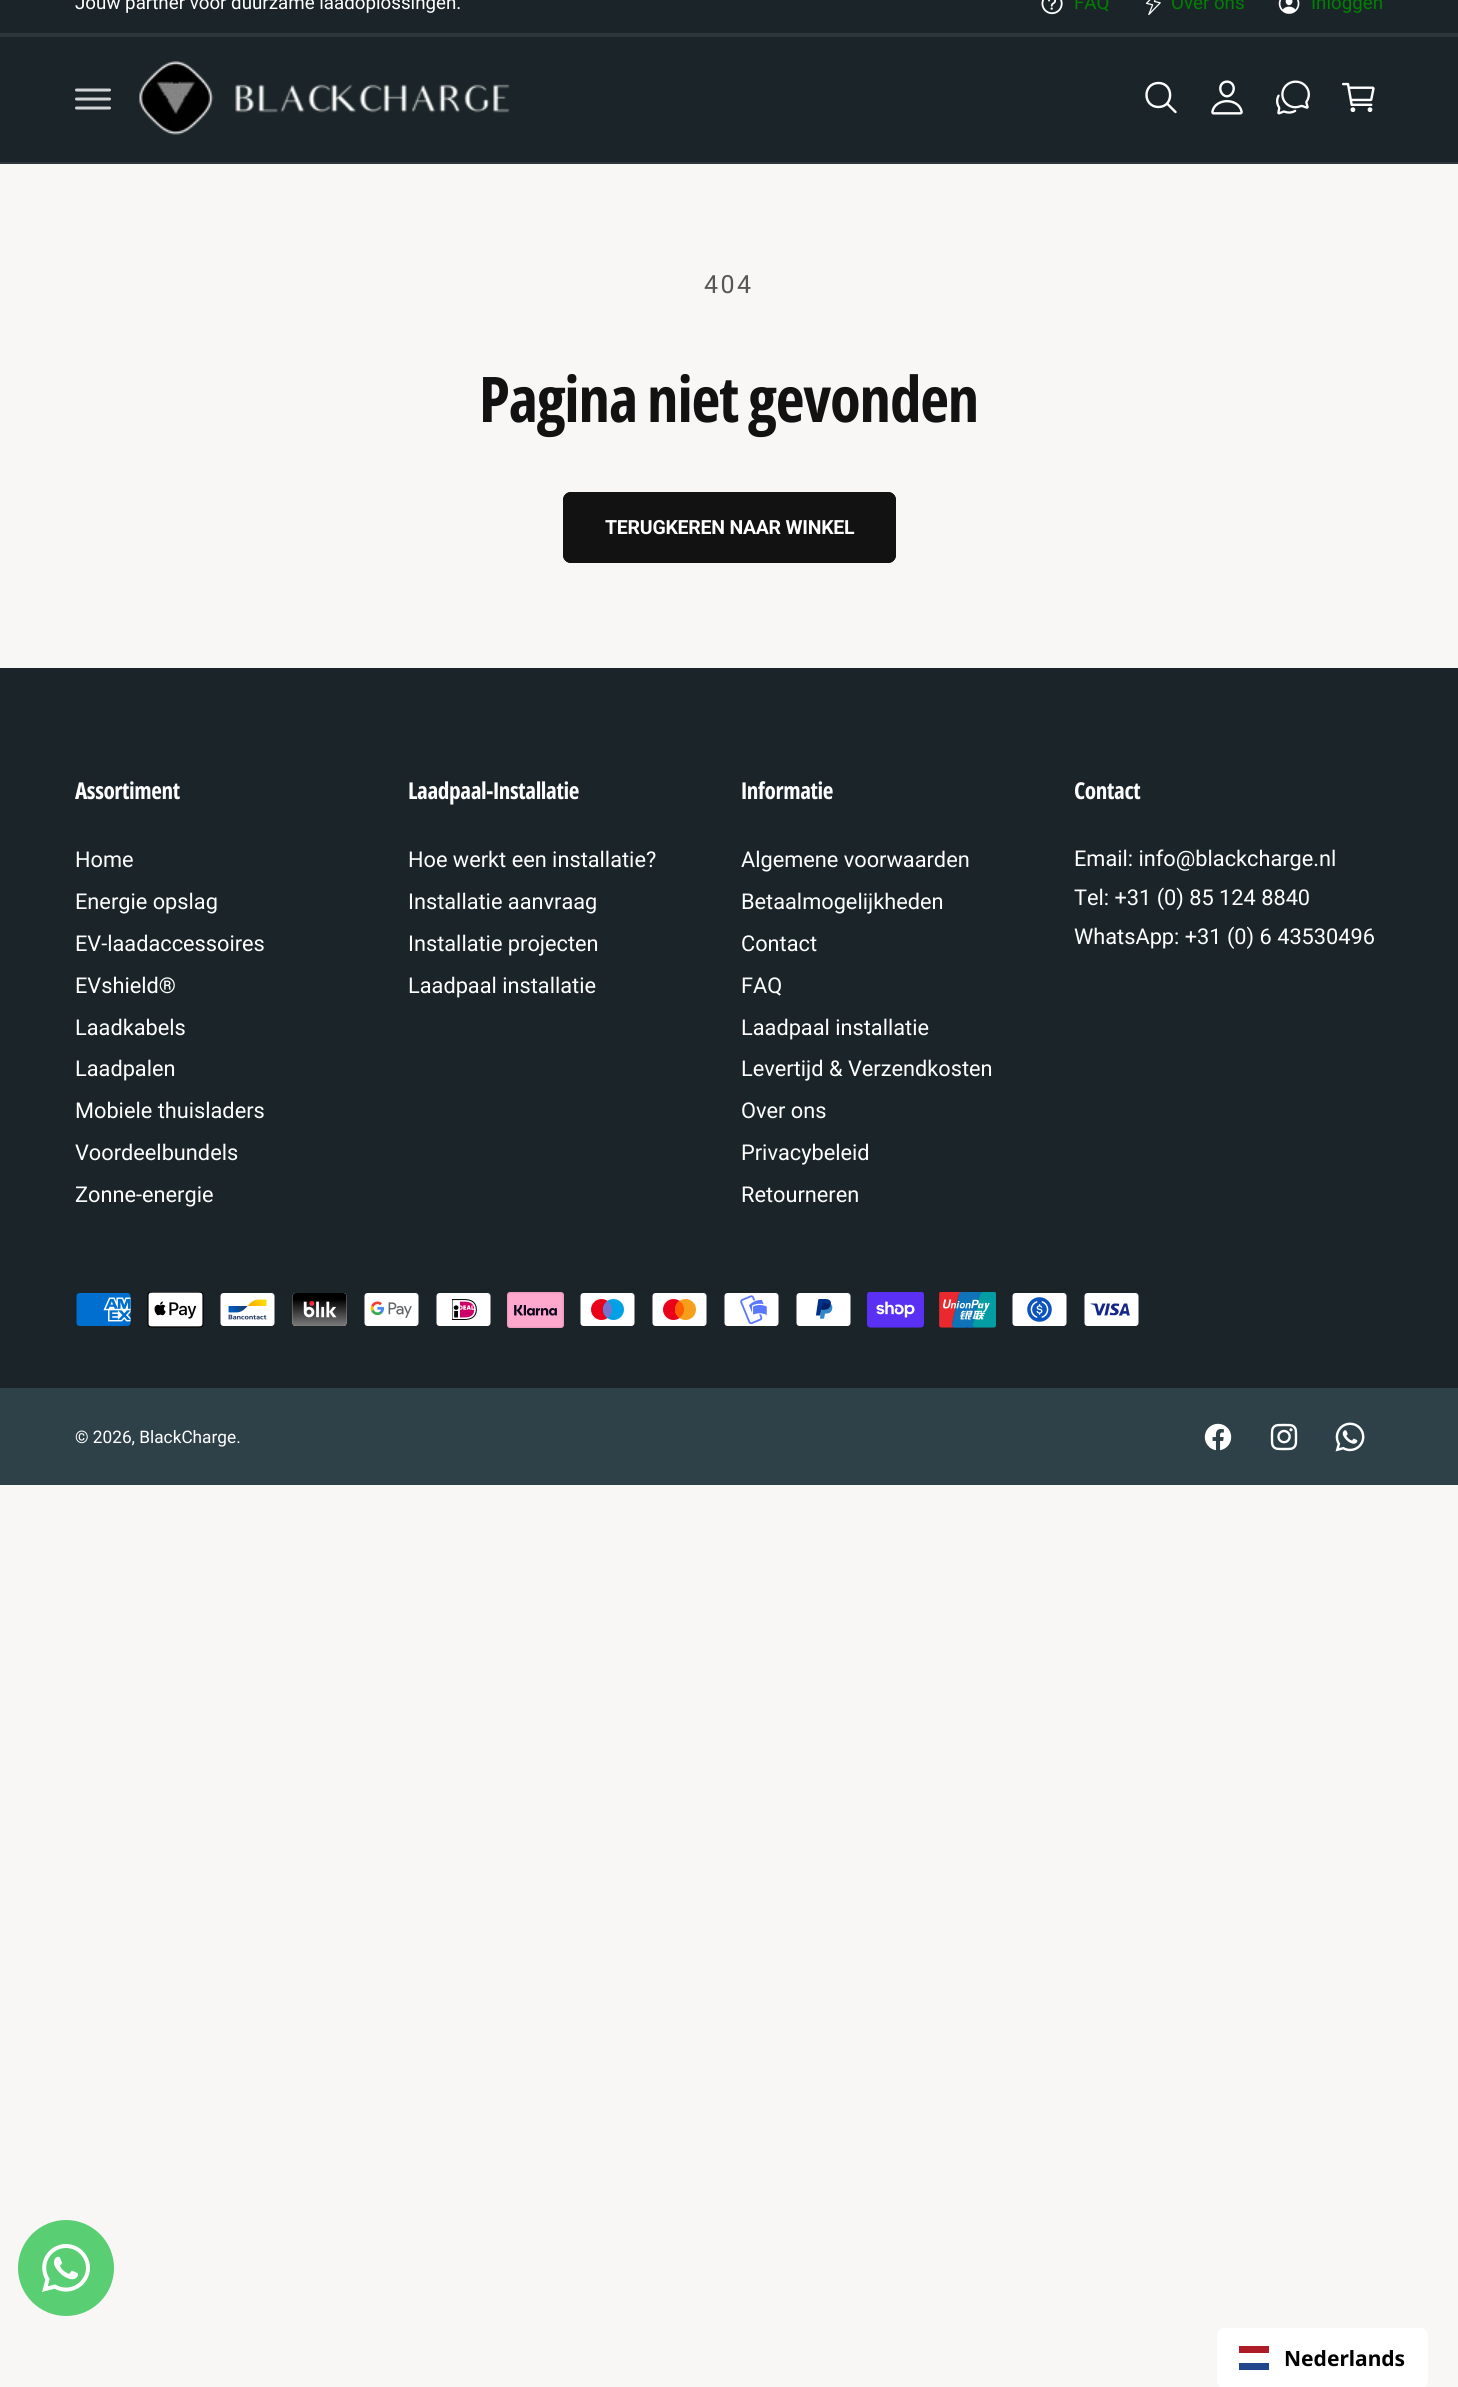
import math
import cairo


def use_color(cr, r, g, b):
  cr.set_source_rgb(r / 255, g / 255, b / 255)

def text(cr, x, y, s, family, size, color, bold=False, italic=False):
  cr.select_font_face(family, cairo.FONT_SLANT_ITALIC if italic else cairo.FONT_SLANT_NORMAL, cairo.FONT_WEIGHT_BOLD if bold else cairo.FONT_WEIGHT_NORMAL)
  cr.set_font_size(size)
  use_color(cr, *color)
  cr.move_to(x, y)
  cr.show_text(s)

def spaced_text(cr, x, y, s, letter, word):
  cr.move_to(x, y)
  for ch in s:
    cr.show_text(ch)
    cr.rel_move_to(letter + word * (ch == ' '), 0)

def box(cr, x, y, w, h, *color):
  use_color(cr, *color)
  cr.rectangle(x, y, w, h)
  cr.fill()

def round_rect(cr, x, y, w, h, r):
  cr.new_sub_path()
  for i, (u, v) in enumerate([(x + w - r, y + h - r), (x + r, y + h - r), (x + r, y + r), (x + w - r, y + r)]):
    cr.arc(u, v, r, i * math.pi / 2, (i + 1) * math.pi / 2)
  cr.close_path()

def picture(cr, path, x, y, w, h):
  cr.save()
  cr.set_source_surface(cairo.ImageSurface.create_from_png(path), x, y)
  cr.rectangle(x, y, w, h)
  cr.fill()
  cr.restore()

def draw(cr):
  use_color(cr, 249, 247, 246)
  cr.paint()
  box(cr, 0, 0, 1458, 33, 27, 37, 41)
  box(cr, 0, 33, 1458, 4, 45, 54, 58)
  picture(cr, "img_01.png", 1041, 0, 22, 15)
  picture(cr, "img_02.png", 1145, 0, 16, 15)
  picture(cr, "img_03.png", 1278, 0, 22, 14)
  box(cr, 0, 37, 1458, 125, 27, 37, 41)
  box(cr, 0, 162, 1458, 2, 45, 54, 58)
  cr.new_path()
  cr.move_to(76.5, 90)
  cr.line_to(109.5, 90)
  cr.move_to(76.5, 99)
  cr.line_to(109.5, 99)
  cr.move_to(76.5, 108)
  cr.line_to(109.5, 108)
  use_color(cr, 209, 211, 212)
  cr.set_line_width(3)
  cr.set_line_cap(cairo.LINE_CAP_ROUND)
  cr.stroke()
  picture(cr, "img_04.png", 139, 61, 371, 74)
  cr.new_path()
  cr.move_to(1158.5, 83)
  cr.curve_to(1142.5, 83, 1142.5, 107, 1158.5, 107)
  cr.curve_to(1174, 107, 1174, 83, 1158.5, 83)
  cr.close_path()
  use_color(cr, 255, 255, 255)
  cr.set_line_width(2.4)
  cr.set_line_cap(cairo.LINE_CAP_BUTT)
  cr.stroke()
  cr.new_path()
  cr.move_to(1167.5, 104)
  cr.line_to(1175.5, 112)
  cr.set_line_cap(cairo.LINE_CAP_ROUND)
  cr.stroke()
  picture(cr, "img_05.png", 1211, 80, 32, 35)
  picture(cr, "img_06.png", 1276, 80, 34, 35)
  picture(cr, "img_07.png", 1342, 82, 33, 31)
  use_color(cr, 18, 18, 18)
  round_rect(cr, 563, 492, 333, 71, 8)
  cr.fill()
  round_rect(cr, 564, 493, 331, 69, 7)
  cr.set_line_width(2)
  cr.set_line_cap(cairo.LINE_CAP_BUTT)
  cr.stroke()
  box(cr, 0, 668, 1458, 720, 27, 37, 41)
  picture(cr, "img_08.png", 76, 1293, 55, 33)
  picture(cr, "img_09.png", 147, 1292, 57, 36)
  picture(cr, "img_10.png", 220, 1293, 55, 33)
  picture(cr, "img_11.png", 292, 1293, 55, 33)
  picture(cr, "img_12.png", 364, 1293, 55, 33)
  picture(cr, "img_13.png", 436, 1293, 55, 33)
  picture(cr, "img_14.png", 507, 1292, 57, 36)
  picture(cr, "img_15.png", 580, 1293, 55, 33)
  picture(cr, "img_16.png", 652, 1293, 55, 33)
  picture(cr, "img_17.png", 724, 1293, 55, 33)
  picture(cr, "img_18.png", 796, 1293, 55, 33)
  picture(cr, "img_19.png", 867, 1292, 57, 36)
  picture(cr, "img_20.png", 939, 1292, 57, 36)
  picture(cr, "img_21.png", 1012, 1293, 55, 33)
  picture(cr, "img_22.png", 1084, 1293, 55, 33)
  box(cr, 0, 1388, 1458, 97, 47, 65, 72)
  picture(cr, "img_23.png", 1204, 1423, 28, 28)
  picture(cr, "img_24.png", 1270, 1423, 28, 28)
  picture(cr, "img_25.png", 1335, 1422, 30, 30)
  use_color(cr, 89, 206, 114)
  cr.arc(66, 2268, 48, 0, 2 * math.pi)
  cr.fill()
  picture(cr, "img_26.png", 42, 2244, 48, 48)
  use_color(cr, 255, 255, 255)
  round_rect(cr, 1217, 2328, 211, 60, 8)
  cr.fill()
  box(cr, 1239, 2346, 30, 7, 174, 28, 40)
  box(cr, 1239, 2363, 30, 7, 33, 70, 139)
  text(cr, 75, 9, "Jouw partner voor duurzame laadoplossingen.", "Roboto", 18.75, (255, 255, 255))
  text(cr, 1074, 9, "FAQ", "Roboto", 18.75, (0, 128, 0))
  text(cr, 1171, 9, "Over ons", "Roboto", 18.75, (0, 128, 0))
  text(cr, 1311, 9, "Inloggen", "Roboto", 18.75, (0, 128, 0))
  cr.set_font_size(25)
  use_color(cr, 87, 87, 86)
  spaced_text(cr, 704, 293, "404", 2.5, 0)
  cr.select_font_face("Open Sans Condensed", cairo.FONT_SLANT_NORMAL, cairo.FONT_WEIGHT_BOLD)
  cr.set_font_size(63)
  use_color(cr, 18, 18, 18)
  spaced_text(cr, 479, 422, "Pagina niet gevonden", -1.2, 0)
  cr.select_font_face("Roboto", cairo.FONT_SLANT_NORMAL, cairo.FONT_WEIGHT_BOLD)
  cr.set_font_size(19.5)
  use_color(cr, 255, 255, 255)
  spaced_text(cr, 605, 534, "TERUGKEREN NAAR WINKEL", -0.25, 0)
  cr.select_font_face("Open Sans Condensed", cairo.FONT_SLANT_NORMAL, cairo.FONT_WEIGHT_BOLD)
  cr.set_font_size(23.25)
  spaced_text(cr, 75, 799, "Assortiment", -0.4, 0)
  text(cr, 75, 867, "Home", "Roboto", 21.75, (255, 255, 255))
  text(cr, 75, 909, "Energie opslag", "Roboto", 21.75, (255, 255, 255))
  text(cr, 75, 951, "EV-laadaccessoires", "Roboto", 21.75, (255, 255, 255))
  text(cr, 75, 993, "EVshield®", "Roboto", 21.75, (255, 255, 255))
  text(cr, 75, 1035, "Laadkabels", "Roboto", 21.75, (255, 255, 255))
  text(cr, 75, 1076, "Laadpalen", "Roboto", 21.75, (255, 255, 255))
  text(cr, 75, 1118, "Mobiele thuisladers", "Roboto", 21.75, (255, 255, 255))
  text(cr, 75, 1160, "Voordeelbundels", "Roboto", 21.75, (255, 255, 255))
  text(cr, 75, 1202, "Zonne-energie", "Roboto", 21.75, (255, 255, 255))
  cr.select_font_face("Open Sans Condensed", cairo.FONT_SLANT_NORMAL, cairo.FONT_WEIGHT_BOLD)
  cr.set_font_size(23.25)
  spaced_text(cr, 408, 799, "Laadpaal-Installatie", -0.4, 0)
  text(cr, 408, 867, "Hoe werkt een installatie?", "Roboto", 21.75, (255, 255, 255))
  text(cr, 408, 909, "Installatie aanvraag", "Roboto", 21.75, (255, 255, 255))
  text(cr, 408, 951, "Installatie projecten", "Roboto", 21.75, (255, 255, 255))
  text(cr, 408, 993, "Laadpaal installatie", "Roboto", 21.75, (255, 255, 255))
  cr.select_font_face("Open Sans Condensed", cairo.FONT_SLANT_NORMAL, cairo.FONT_WEIGHT_BOLD)
  cr.set_font_size(23.25)
  spaced_text(cr, 741, 799, "Informatie", -0.4, 0)
  text(cr, 741, 867, "Algemene voorwaarden", "Roboto", 21.75, (255, 255, 255))
  text(cr, 741, 909, "Betaalmogelijkheden", "Roboto", 21.75, (255, 255, 255))
  text(cr, 741, 951, "Contact", "Roboto", 21.75, (255, 255, 255))
  text(cr, 741, 993, "FAQ", "Roboto", 21.75, (255, 255, 255))
  text(cr, 741, 1035, "Laadpaal installatie", "Roboto", 21.75, (255, 255, 255))
  text(cr, 741, 1076, "Levertijd & Verzendkosten", "Roboto", 21.75, (255, 255, 255))
  text(cr, 741, 1118, "Over ons", "Roboto", 21.75, (255, 255, 255))
  text(cr, 741, 1160, "Privacybeleid", "Roboto", 21.75, (255, 255, 255))
  text(cr, 741, 1202, "Retourneren", "Roboto", 21.75, (255, 255, 255))
  cr.select_font_face("Open Sans Condensed", cairo.FONT_SLANT_NORMAL, cairo.FONT_WEIGHT_BOLD)
  cr.set_font_size(23.25)
  spaced_text(cr, 1074, 799, "Contact", -0.4, 0)
  text(cr, 1074, 866, "Email: info@blackcharge.nl", "Roboto", 21.75, (255, 255, 255))
  text(cr, 1074, 905, "Tel: +31 (0) 85 124 8840", "Roboto", 21.75, (255, 255, 255))
  text(cr, 1074, 944, "WhatsApp: +31 (0) 6 43530496", "Roboto", 21.75, (255, 255, 255))
  text(cr, 75, 1443, "© 2026, BlackCharge.", "Roboto", 17.25, (255, 255, 255))
  text(cr, 1284, 2366, "Nederlands", "Noto Sans", 21, (0, 0, 0), bold=True)


surface = cairo.ImageSurface(cairo.FORMAT_RGB24, 1458, 2387)
cr = cairo.Context(surface)
options = cairo.FontOptions()
options.set_hint_metrics(cairo.HINT_METRICS_OFF)
options.set_hint_style(cairo.HINT_STYLE_NONE)
cr.set_font_options(options)
cr.set_miter_limit(4)
draw(cr)
surface.write_to_png("out.png")
